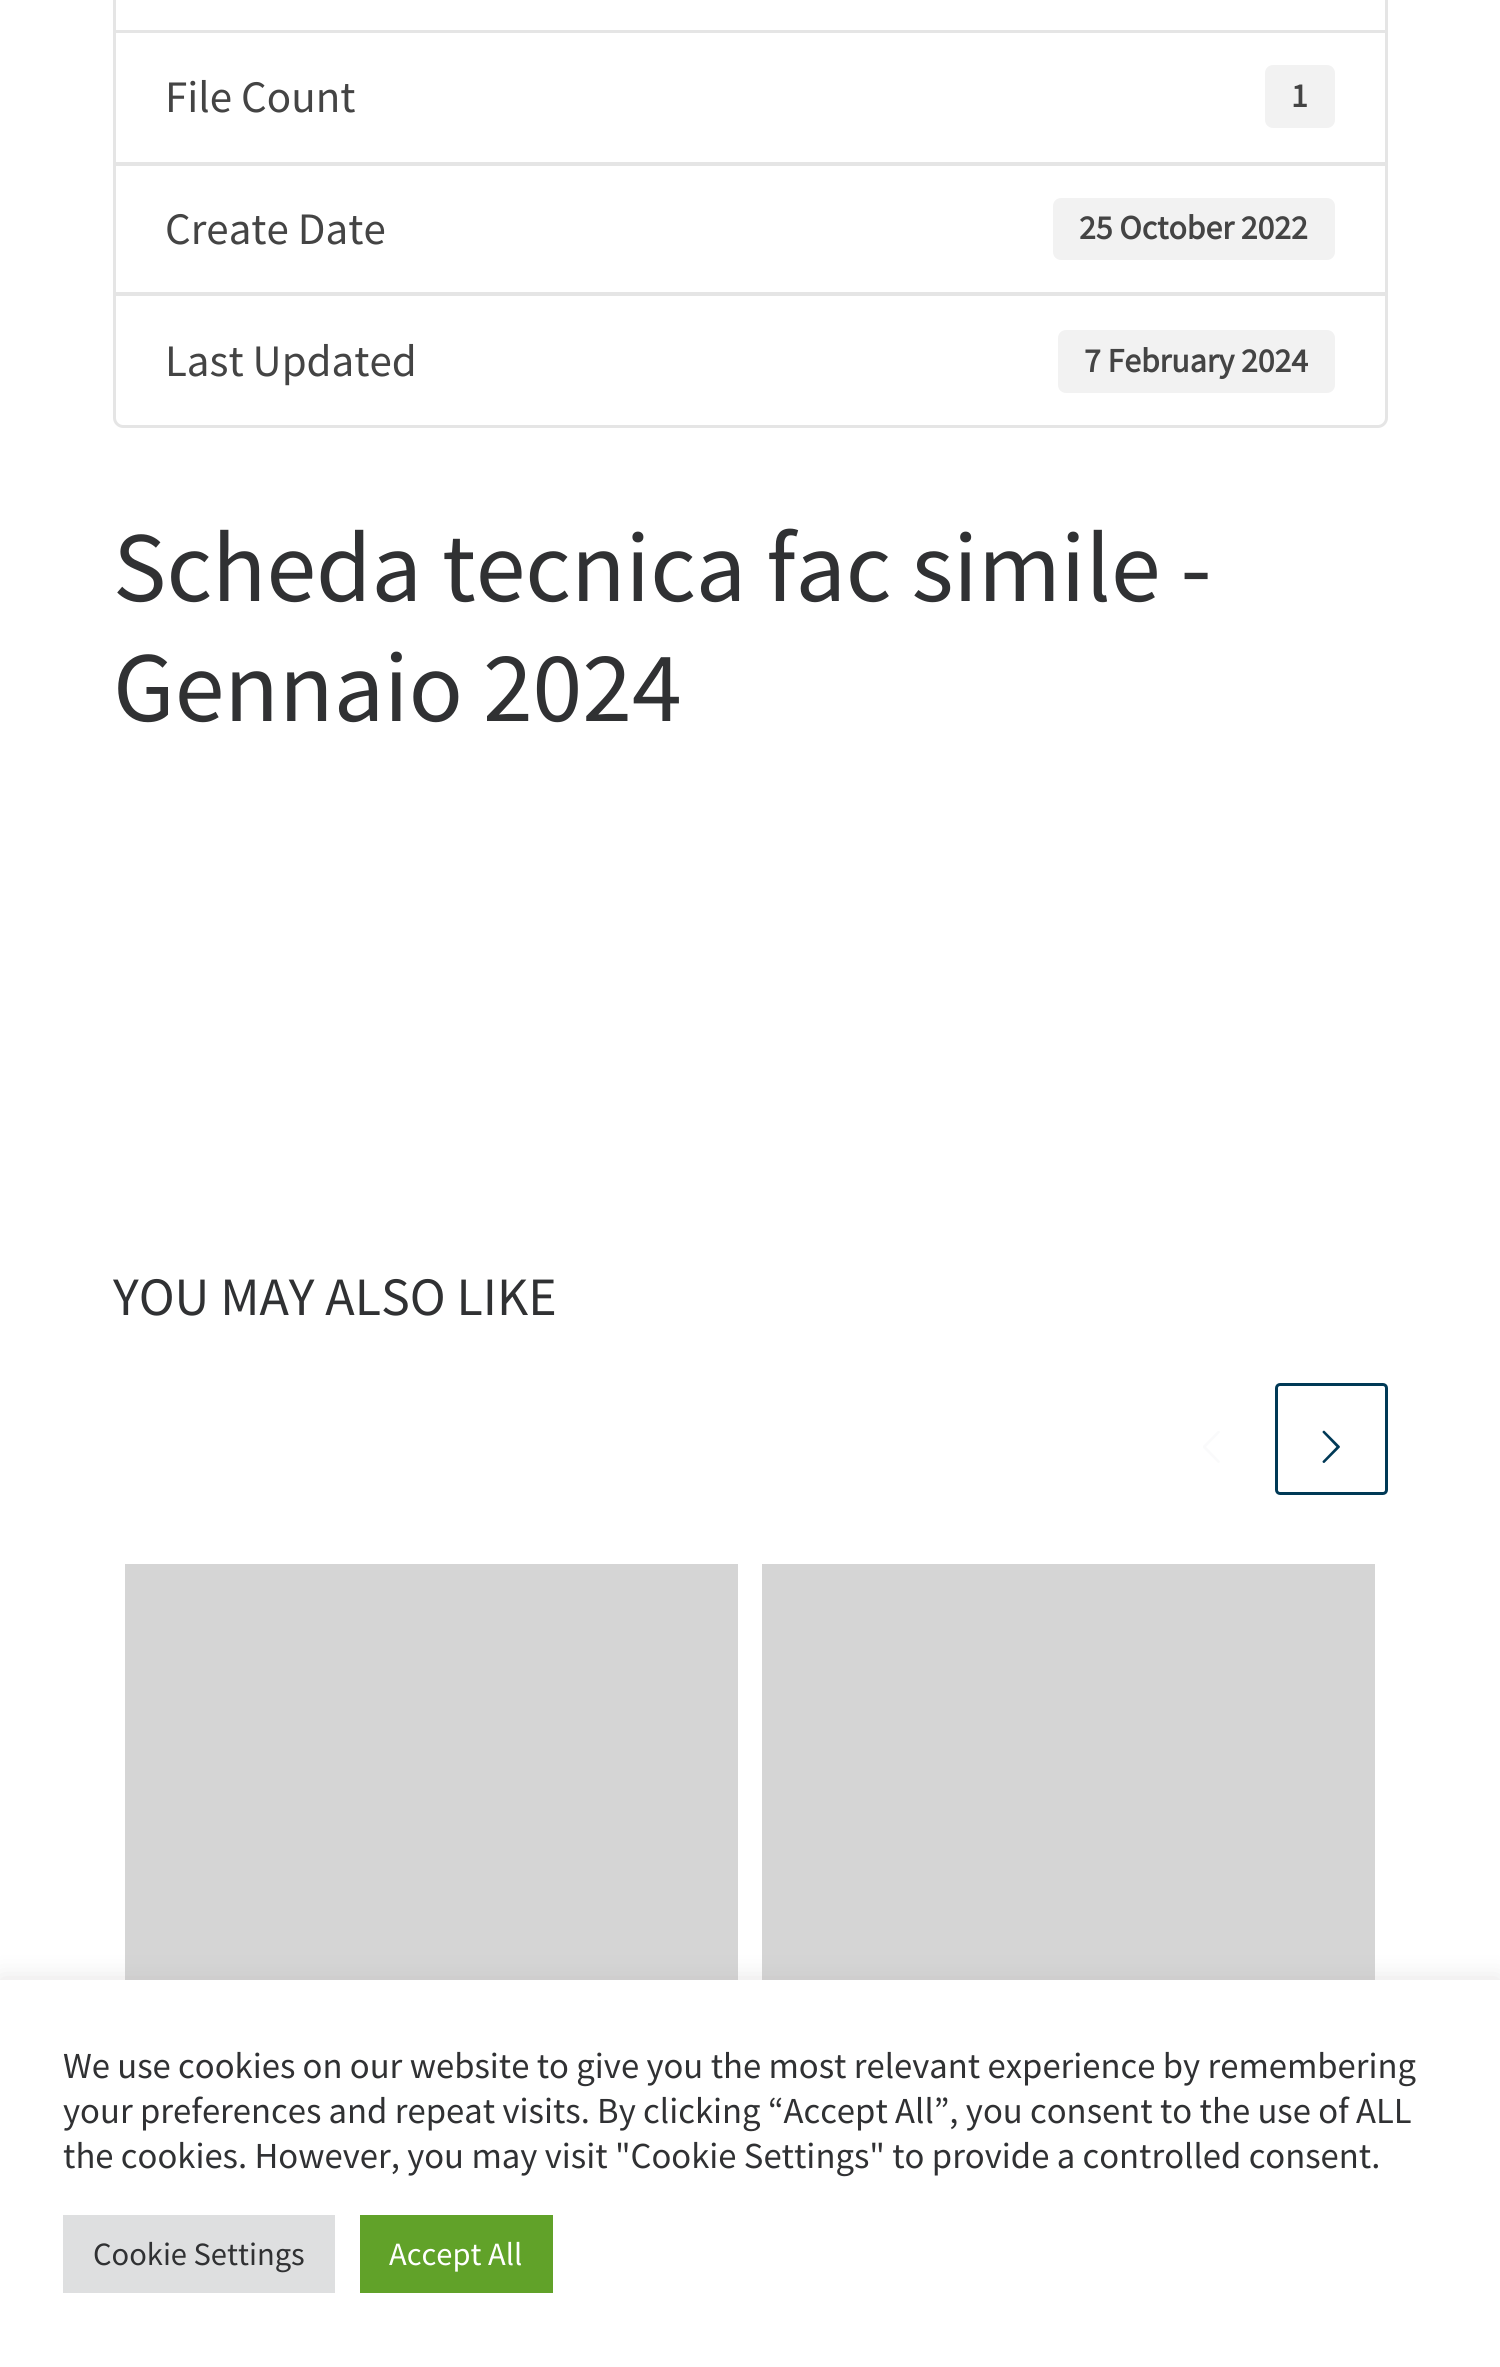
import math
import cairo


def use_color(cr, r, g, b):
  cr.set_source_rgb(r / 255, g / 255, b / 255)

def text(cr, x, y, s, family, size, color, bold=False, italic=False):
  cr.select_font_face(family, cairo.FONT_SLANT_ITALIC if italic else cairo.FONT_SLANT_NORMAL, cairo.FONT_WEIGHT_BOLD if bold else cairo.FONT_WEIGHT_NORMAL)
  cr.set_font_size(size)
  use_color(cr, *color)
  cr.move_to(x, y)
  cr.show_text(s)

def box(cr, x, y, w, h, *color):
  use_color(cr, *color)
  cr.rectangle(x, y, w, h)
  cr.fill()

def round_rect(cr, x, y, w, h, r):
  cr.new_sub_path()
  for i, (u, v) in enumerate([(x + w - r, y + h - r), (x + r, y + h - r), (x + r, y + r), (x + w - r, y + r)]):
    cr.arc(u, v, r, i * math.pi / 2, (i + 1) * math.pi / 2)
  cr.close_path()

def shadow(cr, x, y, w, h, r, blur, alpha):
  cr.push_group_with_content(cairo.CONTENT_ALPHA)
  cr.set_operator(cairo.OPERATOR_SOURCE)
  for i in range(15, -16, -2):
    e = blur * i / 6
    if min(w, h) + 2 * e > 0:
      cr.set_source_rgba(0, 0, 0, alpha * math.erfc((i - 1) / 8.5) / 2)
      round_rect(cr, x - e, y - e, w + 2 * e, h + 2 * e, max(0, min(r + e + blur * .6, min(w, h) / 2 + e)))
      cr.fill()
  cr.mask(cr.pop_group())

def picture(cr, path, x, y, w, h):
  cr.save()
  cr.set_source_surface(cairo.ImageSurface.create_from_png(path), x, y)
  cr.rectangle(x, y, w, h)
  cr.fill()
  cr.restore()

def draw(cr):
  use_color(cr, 255, 255, 255)
  cr.paint()
  cr.rectangle(114.5, -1.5, 1272, 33)
  use_color(cr, 229, 229, 229)
  cr.set_line_width(3)
  cr.stroke()
  cr.rectangle(114.5, 31.5, 1272, 132)
  cr.stroke()
  use_color(cr, 242, 242, 242)
  round_rect(cr, 1265, 65, 70, 63, 8)
  cr.fill()
  cr.rectangle(114.5, 164.5, 1272, 129)
  use_color(cr, 229, 229, 229)
  cr.stroke()
  use_color(cr, 242, 242, 242)
  round_rect(cr, 1053, 198, 282, 62, 8)
  cr.fill()
  use_color(cr, 255, 255, 255)
  cr.new_path()
  cr.move_to(114.5, 294.5)
  cr.line_to(1386.5, 294.5)
  cr.line_to(1386.5, 418)
  cr.curve_to(1386.5, 422.5, 1382.5, 426.5, 1378, 426.5)
  cr.line_to(123, 426.5)
  cr.curve_to(118.5, 426.5, 114.5, 422.5, 114.5, 418)
  cr.close_path()
  cr.fill_preserve()
  use_color(cr, 229, 229, 229)
  cr.stroke()
  use_color(cr, 242, 242, 242)
  round_rect(cr, 1058, 330, 277, 63, 8)
  cr.fill()
  picture(cr, "img_01.png", 1203, 1431, 17, 32)
  round_rect(cr, 1276.5, 1384.5, 110, 109, 3.5)
  use_color(cr, 0, 57, 86)
  cr.stroke()
  picture(cr, "img_02.png", 1322, 1430, 18, 33)
  box(cr, 125, 1564, 613, 416, 213, 213, 213)
  box(cr, 762, 1564, 613, 416, 213, 213, 213)
  use_color(cr, 172, 171, 171)
  shadow(cr, 0, 1978, 1500, 387, 0, 12.5, 0.3)
  box(cr, 0, 1980, 1500, 387, 255, 255, 255)
  box(cr, 63, 2215, 272, 78, 222, 223, 224)
  box(cr, 360, 2215, 193, 78, 97, 162, 41)
  text(cr, 165, 112, "File Count", "Source Sans Pro", 45, (68, 68, 68))
  text(cr, 1291, 107, "1", "Source Sans Pro", 33.75, (68, 68, 68), bold=True)
  text(cr, 165, 244, "Create Date", "Source Sans Pro", 45, (68, 68, 68))
  text(cr, 1079, 239, "25 October 2022", "Source Sans Pro", 33.75, (68, 68, 68), bold=True)
  text(cr, 165, 376, "Last Updated", "Source Sans Pro", 45, (68, 68, 68))
  text(cr, 1084, 372, "7 February 2024", "Source Sans Pro", 33.75, (68, 68, 68), bold=True)
  text(cr, 113, 601, "Scheda tecnica fac simile -", "Source Sans Pro", 100, (48, 49, 51))
  text(cr, 113, 721, "Gennaio 2024", "Source Sans Pro", 100, (48, 49, 51))
  text(cr, 113, 1315, "YOU MAY ALSO LIKE", "Source Sans Pro", 54, (48, 49, 51))
  text(cr, 63, 2078, "We use cookies on our website to give you the most relevant experience by remembering", "Source Sans Pro", 36.65, (48, 49, 51))
  text(cr, 63, 2123, "your preferences and repeat visits. By clicking “Accept All”, you consent to the use of ALL", "Source Sans Pro", 36.65, (48, 49, 51))
  text(cr, 63, 2168, "the cookies. However, you may visit \"Cookie Settings\" to provide a controlled consent.", "Source Sans Pro", 36.65, (48, 49, 51))
  text(cr, 93, 2265, "Cookie Settings", "Source Sans Pro", 32.5, (48, 49, 51))
  text(cr, 389, 2265, "Accept All", "Source Sans Pro", 32.5, (255, 255, 255))


surface = cairo.ImageSurface(cairo.FORMAT_RGB24, 1500, 2367)
cr = cairo.Context(surface)
options = cairo.FontOptions()
options.set_hint_metrics(cairo.HINT_METRICS_OFF)
options.set_hint_style(cairo.HINT_STYLE_NONE)
cr.set_font_options(options)
cr.set_miter_limit(4)
draw(cr)
surface.write_to_png("out.png")
